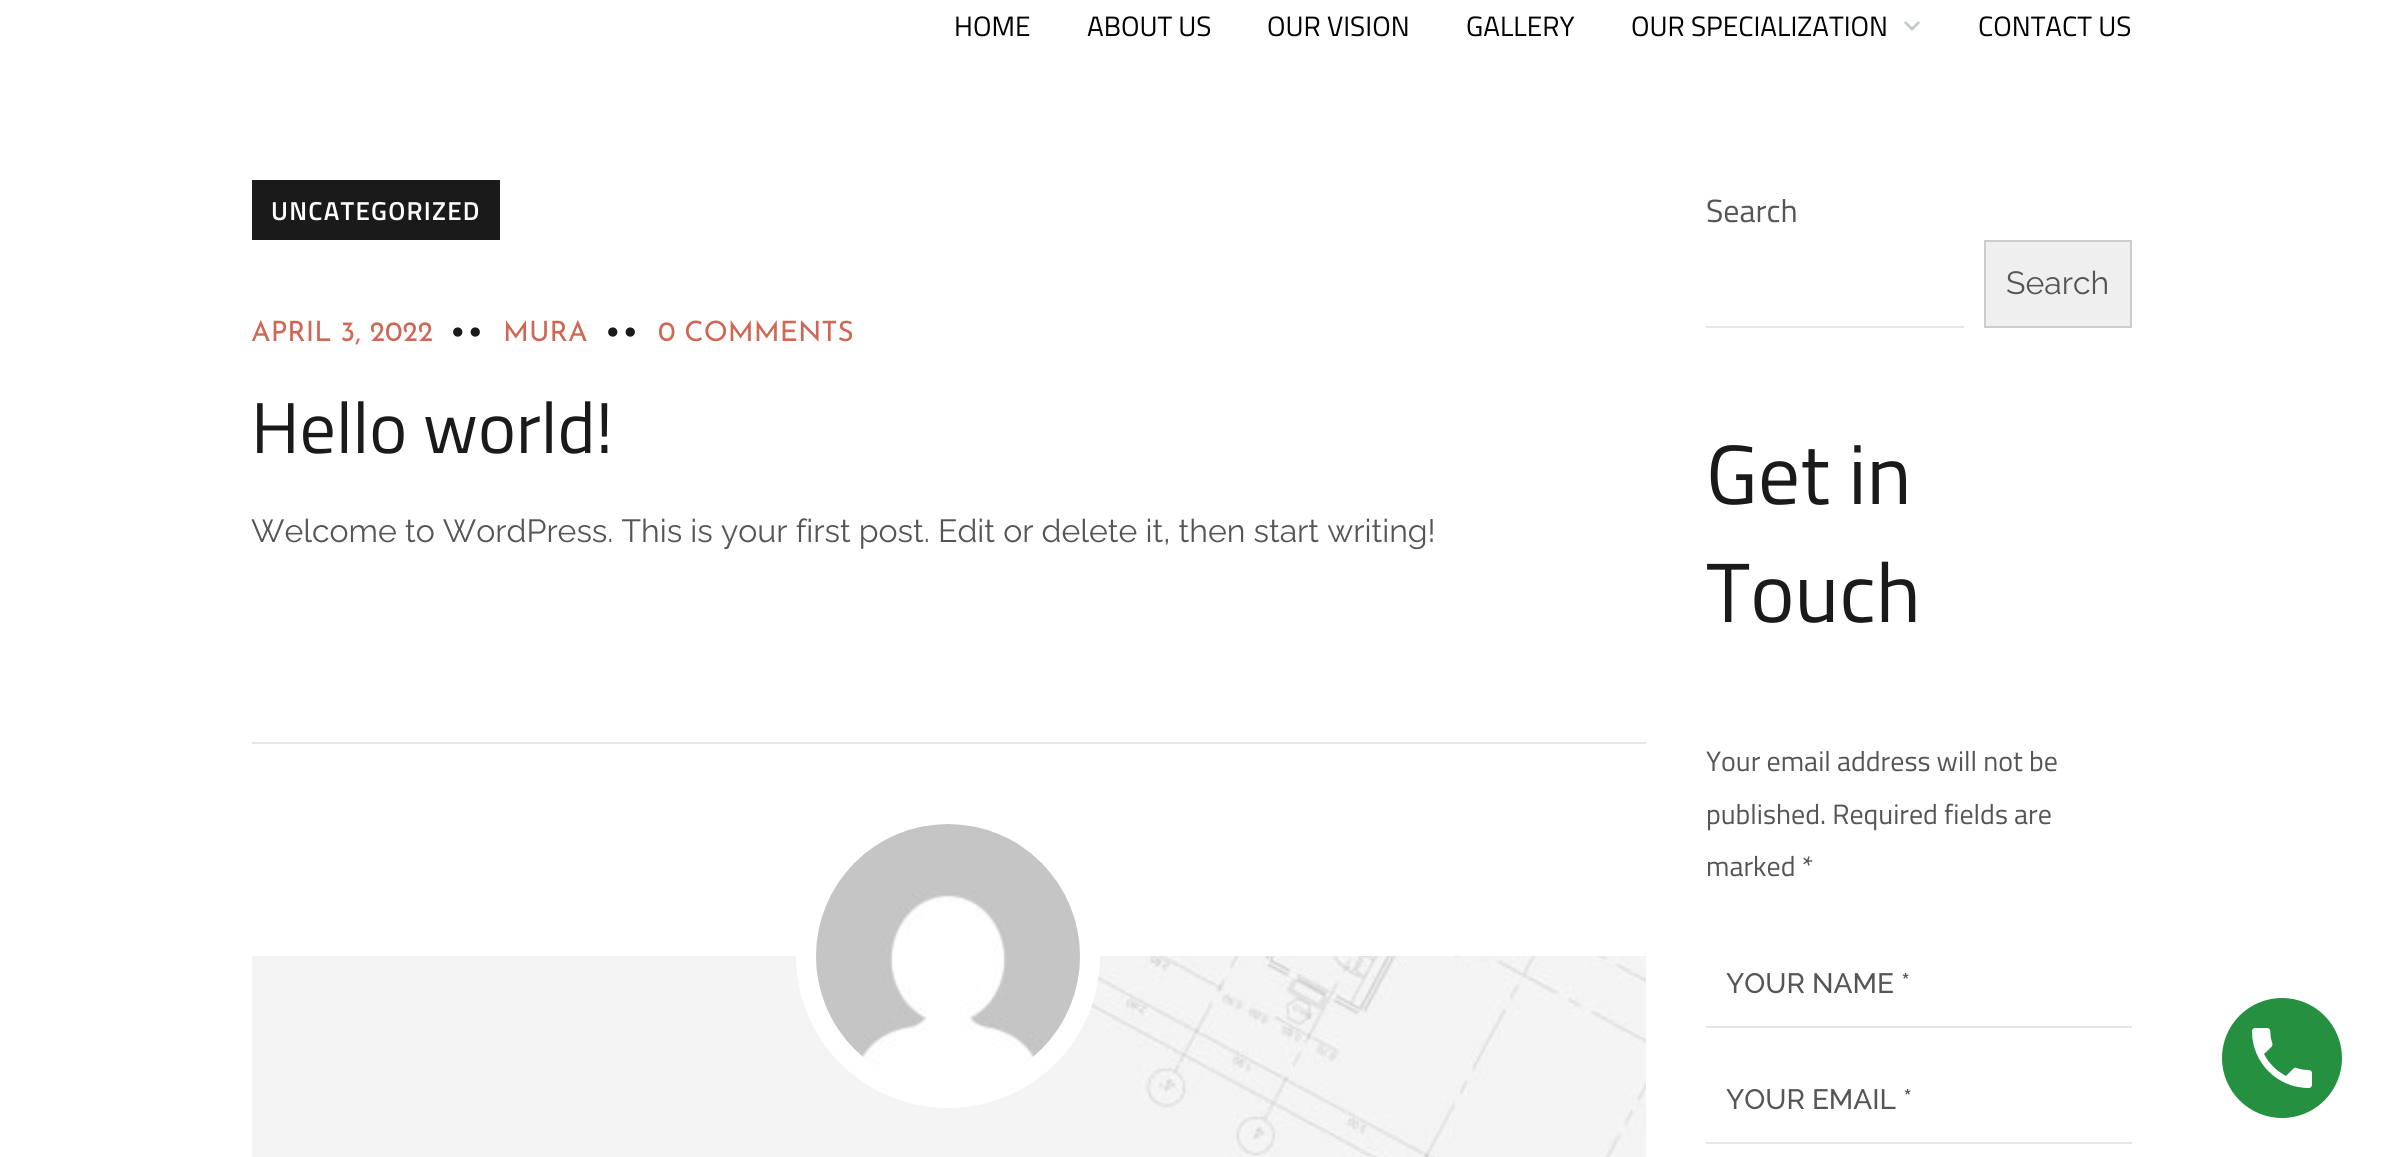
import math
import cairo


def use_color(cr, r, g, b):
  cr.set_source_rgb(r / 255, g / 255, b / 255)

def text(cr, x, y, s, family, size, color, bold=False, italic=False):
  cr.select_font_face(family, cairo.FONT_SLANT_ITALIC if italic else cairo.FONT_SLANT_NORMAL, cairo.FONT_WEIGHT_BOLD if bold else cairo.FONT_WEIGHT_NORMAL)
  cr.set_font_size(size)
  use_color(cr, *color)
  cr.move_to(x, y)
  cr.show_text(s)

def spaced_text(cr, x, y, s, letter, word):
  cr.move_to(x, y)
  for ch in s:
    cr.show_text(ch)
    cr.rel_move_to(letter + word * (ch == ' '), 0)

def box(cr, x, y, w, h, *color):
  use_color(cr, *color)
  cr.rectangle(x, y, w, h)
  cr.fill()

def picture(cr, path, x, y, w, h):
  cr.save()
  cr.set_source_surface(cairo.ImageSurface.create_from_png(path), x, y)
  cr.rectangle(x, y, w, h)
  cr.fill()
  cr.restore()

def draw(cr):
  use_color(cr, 255, 255, 255)
  cr.paint()
  picture(cr, "img_01.png", 1904, 21, 16, 10)
  box(cr, 252, 180, 248, 60, 26, 26, 26)
  box(cr, 252, 742, 1394, 2, 230, 230, 230)
  picture(cr, "img_03.png", 252, 956, 1394, 201)
  cr.arc(948, 956, 142, 0, 2 * math.pi)
  use_color(cr, 255, 255, 255)
  cr.set_line_width(20)
  cr.stroke()
  picture(cr, "img_02.png", 816, 824, 264, 264)
  use_color(cr, 239, 239, 239)
  cr.rectangle(1985, 241, 146, 86)
  cr.fill_preserve()
  use_color(cr, 204, 204, 204)
  cr.set_line_width(2)
  cr.stroke()
  box(cr, 1706, 326, 258, 2, 230, 230, 230)
  box(cr, 1706, 1026, 426, 2, 230, 230, 230)
  box(cr, 1706, 1142, 426, 2, 230, 230, 230)
  use_color(cr, 38, 144, 65)
  cr.arc(2282, 1058, 60, 0, 2 * math.pi)
  cr.fill()
  picture(cr, "img_04.png", 2252, 1028, 60, 60)
  text(cr, 954, 36, "HOME", "Titillium Web", 28, (0, 0, 0))
  text(cr, 1087, 36, "ABOUT US", "Titillium Web", 28, (0, 0, 0))
  text(cr, 1267, 36, "OUR VISION", "Titillium Web", 28, (0, 0, 0))
  text(cr, 1466, 36, "GALLERY", "Titillium Web", 28, (0, 0, 0))
  text(cr, 1631, 36, "OUR SPECIALIZATION", "Titillium Web", 28, (0, 0, 0))
  text(cr, 1978, 36, "CONTACT US", "Titillium Web", 28, (0, 0, 0))
  cr.select_font_face("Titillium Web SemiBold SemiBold")
  cr.set_font_size(26)
  use_color(cr, 255, 255, 255)
  spaced_text(cr, 271, 220, "UNCATEGORIZED", 1.25, 0)
  text(cr, 251, 341, "APRIL 3, 2022", "Josefin Sans", 28, (206, 103, 84))
  text(cr, 449, 343, "••", "Josefin Sans", 36, (26, 26, 26))
  text(cr, 503, 341, "MURA", "Josefin Sans", 28, (206, 103, 84))
  text(cr, 604, 343, "••", "Josefin Sans", 36, (26, 26, 26))
  text(cr, 658, 341, "0 COMMENTS", "Josefin Sans", 28, (206, 103, 84))
  text(cr, 251, 453, "Hello world!", "Titillium Web", 72, (26, 26, 26))
  text(cr, 251, 542, "Welcome to WordPress. This is your first post. Edit or delete it, then start writing!", "Raleway", 32, (85, 85, 85))
  text(cr, 1706, 222, "Search", "Titillium Web", 32, (85, 85, 85))
  text(cr, 2006, 294, "Search", "Raleway", 32, (85, 85, 85))
  text(cr, 1706, 504, "Get in", "Titillium Web", 84, (26, 26, 26))
  text(cr, 1706, 622, "Touch", "Titillium Web", 84, (26, 26, 26))
  text(cr, 1706, 771, "Your email address will not be", "Titillium Web", 28, (85, 85, 85))
  text(cr, 1706, 824, "published. Required fields are", "Titillium Web", 28, (85, 85, 85))
  text(cr, 1706, 876, "marked *", "Titillium Web", 28, (85, 85, 85))
  text(cr, 1726, 993, "YOUR NAME *", "Raleway Medium", 28, (85, 85, 85))
  text(cr, 1726, 1109, "YOUR EMAIL *", "Raleway Medium", 28, (85, 85, 85))


surface = cairo.ImageSurface(cairo.FORMAT_RGB24, 2381, 1157)
cr = cairo.Context(surface)
options = cairo.FontOptions()
options.set_hint_metrics(cairo.HINT_METRICS_OFF)
options.set_hint_style(cairo.HINT_STYLE_NONE)
cr.set_font_options(options)
cr.set_miter_limit(4)
draw(cr)
surface.write_to_png("out.png")
